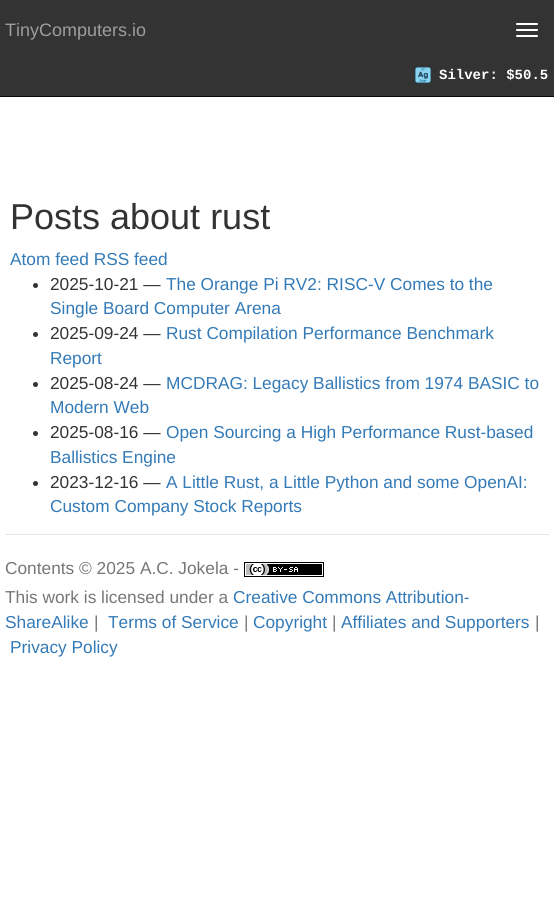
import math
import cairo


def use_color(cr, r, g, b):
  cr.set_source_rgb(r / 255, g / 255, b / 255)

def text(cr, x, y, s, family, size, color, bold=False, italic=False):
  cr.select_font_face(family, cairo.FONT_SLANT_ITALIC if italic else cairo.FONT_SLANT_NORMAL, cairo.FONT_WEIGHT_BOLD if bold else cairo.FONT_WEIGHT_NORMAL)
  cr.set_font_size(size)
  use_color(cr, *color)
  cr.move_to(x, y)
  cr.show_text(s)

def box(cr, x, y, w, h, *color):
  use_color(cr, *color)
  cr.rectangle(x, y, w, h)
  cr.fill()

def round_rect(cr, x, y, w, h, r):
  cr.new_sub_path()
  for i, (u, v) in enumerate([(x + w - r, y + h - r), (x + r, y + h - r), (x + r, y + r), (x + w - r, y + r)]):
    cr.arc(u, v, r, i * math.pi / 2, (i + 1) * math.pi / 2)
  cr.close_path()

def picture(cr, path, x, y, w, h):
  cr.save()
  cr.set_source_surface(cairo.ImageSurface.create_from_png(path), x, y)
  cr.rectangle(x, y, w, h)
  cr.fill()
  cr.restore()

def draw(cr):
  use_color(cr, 255, 255, 255)
  cr.paint()
  box(cr, 0, 0, 554, 96, 51, 51, 51)
  box(cr, 0, 96, 554, 1, 8, 8, 8)
  use_color(cr, 255, 255, 255)
  round_rect(cr, 516, 23, 22, 2, 1)
  cr.fill()
  round_rect(cr, 516, 29, 22, 2, 1)
  cr.fill()
  round_rect(cr, 516, 35, 22, 2, 1)
  cr.fill()
  picture(cr, "img_01.png", 415, 67, 16, 16)
  use_color(cr, 51, 51, 51)
  cr.arc(35.5, 285.5, 2.5, 0, 2 * math.pi)
  cr.fill()
  cr.arc(35.5, 334.5, 2.5, 0, 2 * math.pi)
  cr.fill()
  cr.arc(35.5, 384.5, 2.5, 0, 2 * math.pi)
  cr.fill()
  cr.arc(35.5, 433.5, 2.5, 0, 2 * math.pi)
  cr.fill()
  cr.arc(35.5, 483.5, 2.5, 0, 2 * math.pi)
  cr.fill()
  box(cr, 5, 534, 544, 1, 229, 229, 229)
  picture(cr, "img_02.png", 244, 562, 80, 15)
  text(cr, 5, 36, "TinyComputers.io", "Liberation Sans", 18, (157, 157, 157))
  text(cr, 439, 79, "Silver: $50.5", "Liberation Mono", 14, (255, 255, 255), bold=True)
  text(cr, 10, 229, "Posts about rust", "Liberation Sans", 36, (51, 51, 51))
  text(cr, 10, 265, "Atom feed RSS feed", "Liberation Sans", 17.3, (51, 122, 183))
  text(cr, 50, 290, "2025-10-21 —", "Liberation Sans", 17.3, (51, 51, 51))
  text(cr, 166, 290, "The Orange Pi RV2: RISC-V Comes to the", "Liberation Sans", 17.3, (51, 122, 183))
  text(cr, 50, 314, "Single Board Computer Arena", "Liberation Sans", 17.3, (51, 122, 183))
  text(cr, 50, 339, "2025-09-24 —", "Liberation Sans", 17.3, (51, 51, 51))
  text(cr, 166, 339, "Rust Compilation Performance Benchmark", "Liberation Sans", 17.3, (51, 122, 183))
  text(cr, 50, 364, "Report", "Liberation Sans", 17.3, (51, 122, 183))
  text(cr, 50, 389, "2025-08-24 —", "Liberation Sans", 17.3, (51, 51, 51))
  text(cr, 166, 389, "MCDRAG: Legacy Ballistics from 1974 BASIC to", "Liberation Sans", 17.3, (51, 122, 183))
  text(cr, 50, 413, "Modern Web", "Liberation Sans", 17.3, (51, 122, 183))
  text(cr, 50, 438, "2025-08-16 —", "Liberation Sans", 17.3, (51, 51, 51))
  text(cr, 166, 438, "Open Sourcing a High Performance Rust-based", "Liberation Sans", 17.3, (51, 122, 183))
  text(cr, 50, 463, "Ballistics Engine", "Liberation Sans", 17.3, (51, 122, 183))
  text(cr, 50, 488, "2023-12-16 —", "Liberation Sans", 17.3, (51, 51, 51))
  text(cr, 166, 488, "A Little Rust, a Little Python and some OpenAI:", "Liberation Sans", 17.3, (51, 122, 183))
  text(cr, 50, 512, "Custom Company Stock Reports", "Liberation Sans", 17.3, (51, 122, 183))
  text(cr, 5, 574, "Contents © 2025 A.C. Jokela -", "Liberation Sans", 17.3, (119, 119, 119))
  text(cr, 5, 603, "This work is licensed under a", "Liberation Sans", 17.3, (119, 119, 119))
  text(cr, 233, 603, "Creative Commons Attribution-", "Liberation Sans", 17.3, (51, 122, 183))
  text(cr, 5, 628, "ShareAlike", "Liberation Sans", 17.3, (51, 122, 183))
  text(cr, 94, 628, "|", "Liberation Sans", 17.3, (119, 119, 119))
  text(cr, 108, 628, "Terms of Service", "Liberation Sans", 17.3, (51, 122, 183))
  text(cr, 244, 628, "|", "Liberation Sans", 17.3, (119, 119, 119))
  text(cr, 253, 628, "Copyright", "Liberation Sans", 17.3, (51, 122, 183))
  text(cr, 332, 628, "|", "Liberation Sans", 17.3, (119, 119, 119))
  text(cr, 341, 628, "Affiliates and Supporters", "Liberation Sans", 17.3, (51, 122, 183))
  text(cr, 535, 628, "|", "Liberation Sans", 17.3, (119, 119, 119))
  text(cr, 10, 653, "Privacy Policy", "Liberation Sans", 17.3, (51, 122, 183))


surface = cairo.ImageSurface(cairo.FORMAT_RGB24, 554, 897)
cr = cairo.Context(surface)
options = cairo.FontOptions()
options.set_hint_metrics(cairo.HINT_METRICS_OFF)
options.set_hint_style(cairo.HINT_STYLE_NONE)
cr.set_font_options(options)
cr.set_miter_limit(4)
draw(cr)
surface.write_to_png("out.png")
